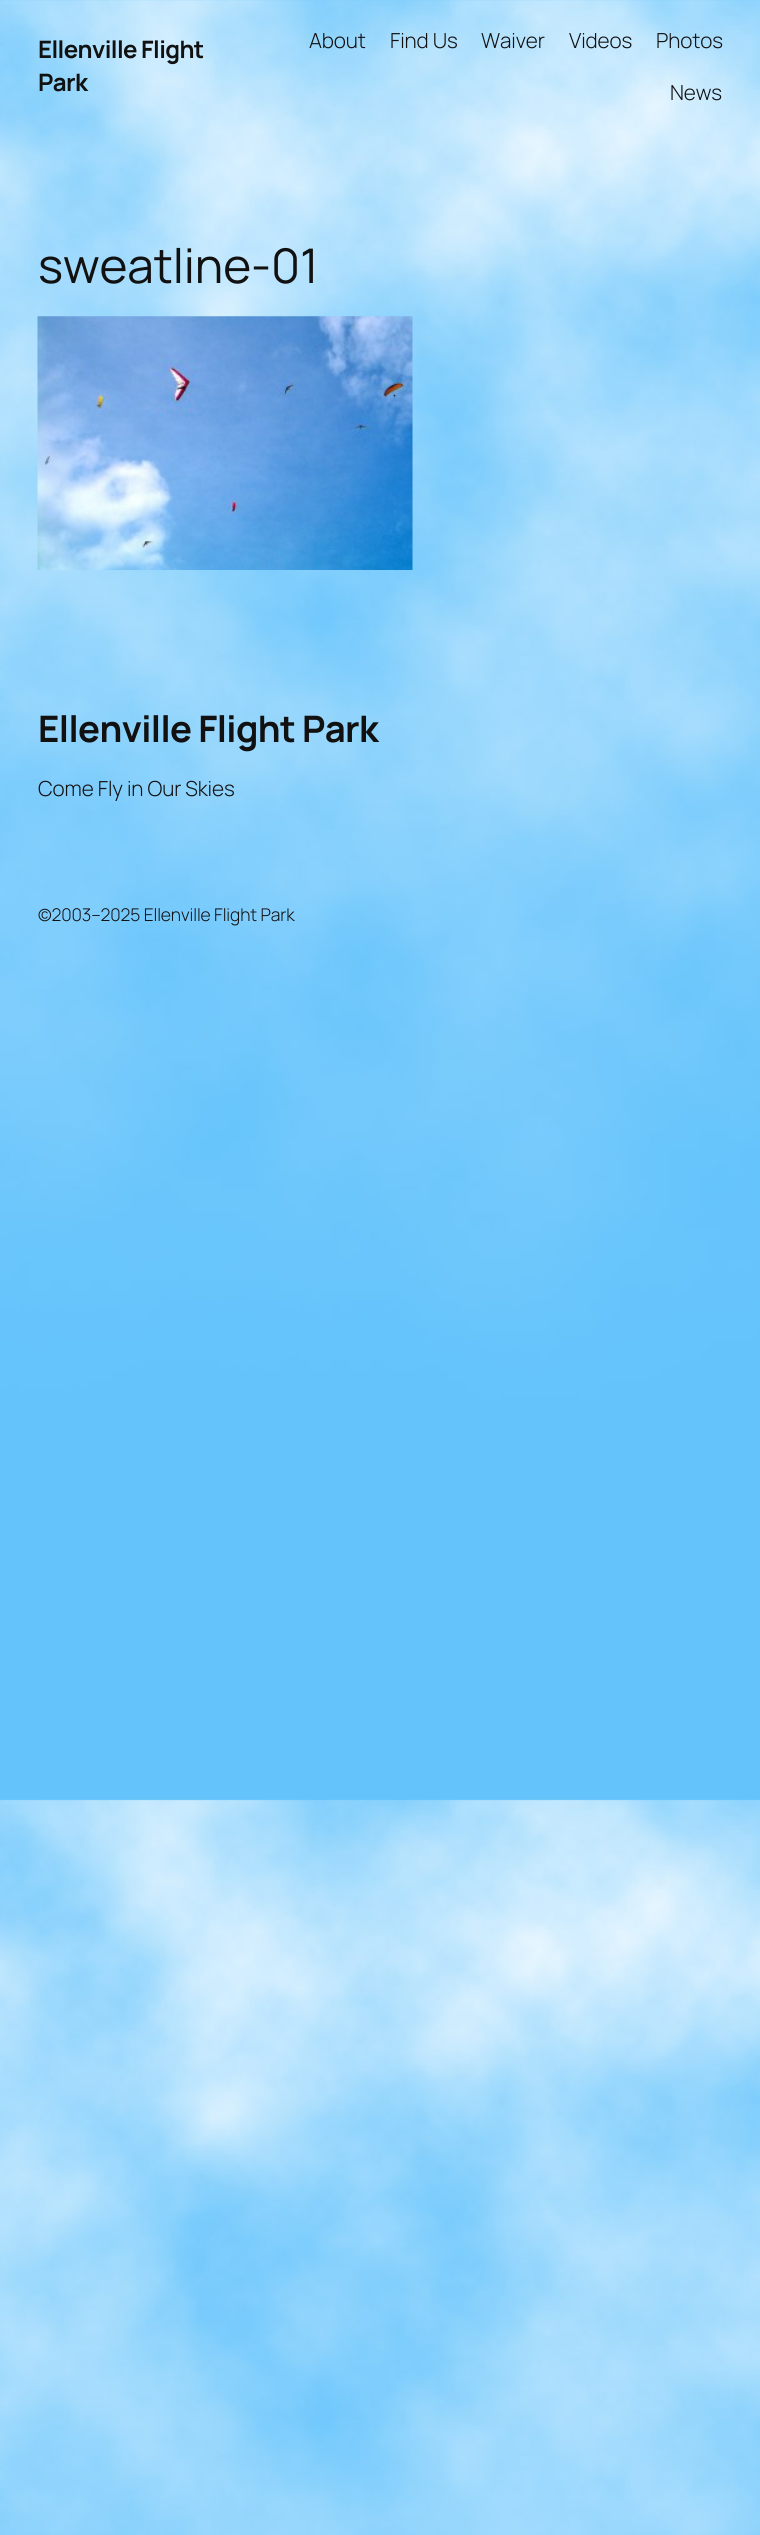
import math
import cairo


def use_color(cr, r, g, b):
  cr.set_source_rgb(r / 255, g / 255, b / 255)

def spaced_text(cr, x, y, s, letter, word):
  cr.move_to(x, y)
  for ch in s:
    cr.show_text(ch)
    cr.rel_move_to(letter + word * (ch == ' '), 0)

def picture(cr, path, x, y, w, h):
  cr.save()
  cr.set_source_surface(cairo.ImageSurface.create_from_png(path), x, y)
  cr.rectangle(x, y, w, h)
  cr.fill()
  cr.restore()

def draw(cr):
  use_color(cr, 255, 255, 255)
  cr.paint()
  picture(cr, "img_01.png", 0, 0, 760, 2535)
  picture(cr, "img_02.png", 37, 316, 376, 254)
  cr.select_font_face("Manrope", cairo.FONT_SLANT_NORMAL, cairo.FONT_WEIGHT_BOLD)
  cr.set_font_size(24)
  use_color(cr, 17, 17, 17)
  spaced_text(cr, 38, 58, "Ellenville Flight", -0.6, 0)
  spaced_text(cr, 38, 91, "Park", -0.6, 0)
  cr.select_font_face("Manrope Light")
  cr.set_font_size(20.75)
  spaced_text(cr, 309, 48, "About", -0.1, 0)
  spaced_text(cr, 390, 48, "Find Us", -0.1, 0)
  spaced_text(cr, 481, 48, "Waiver", -0.1, 0)
  spaced_text(cr, 569, 48, "Videos", -0.1, 0)
  spaced_text(cr, 656, 48, "Photos", -0.1, 0)
  spaced_text(cr, 670, 100, "News", -0.1, 0)
  cr.select_font_face("Manrope")
  cr.set_font_size(47.75)
  spaced_text(cr, 38, 283, "sweatline-01", -0.1, 0)
  cr.select_font_face("Manrope", cairo.FONT_SLANT_NORMAL, cairo.FONT_WEIGHT_BOLD)
  cr.set_font_size(36.5)
  spaced_text(cr, 38, 742, "Ellenville Flight Park", -0.6, 0)
  cr.select_font_face("Manrope Light")
  cr.set_font_size(20.75)
  spaced_text(cr, 38, 796, "Come Fly in Our Skies", -0.1, 0)
  cr.set_font_size(17.5)
  spaced_text(cr, 38, 921, "©2003–2025 Ellenville Flight Park", -0.1, 0)


surface = cairo.ImageSurface(cairo.FORMAT_RGB24, 760, 2535)
cr = cairo.Context(surface)
options = cairo.FontOptions()
options.set_hint_metrics(cairo.HINT_METRICS_OFF)
options.set_hint_style(cairo.HINT_STYLE_NONE)
cr.set_font_options(options)
cr.set_miter_limit(4)
draw(cr)
surface.write_to_png("out.png")
